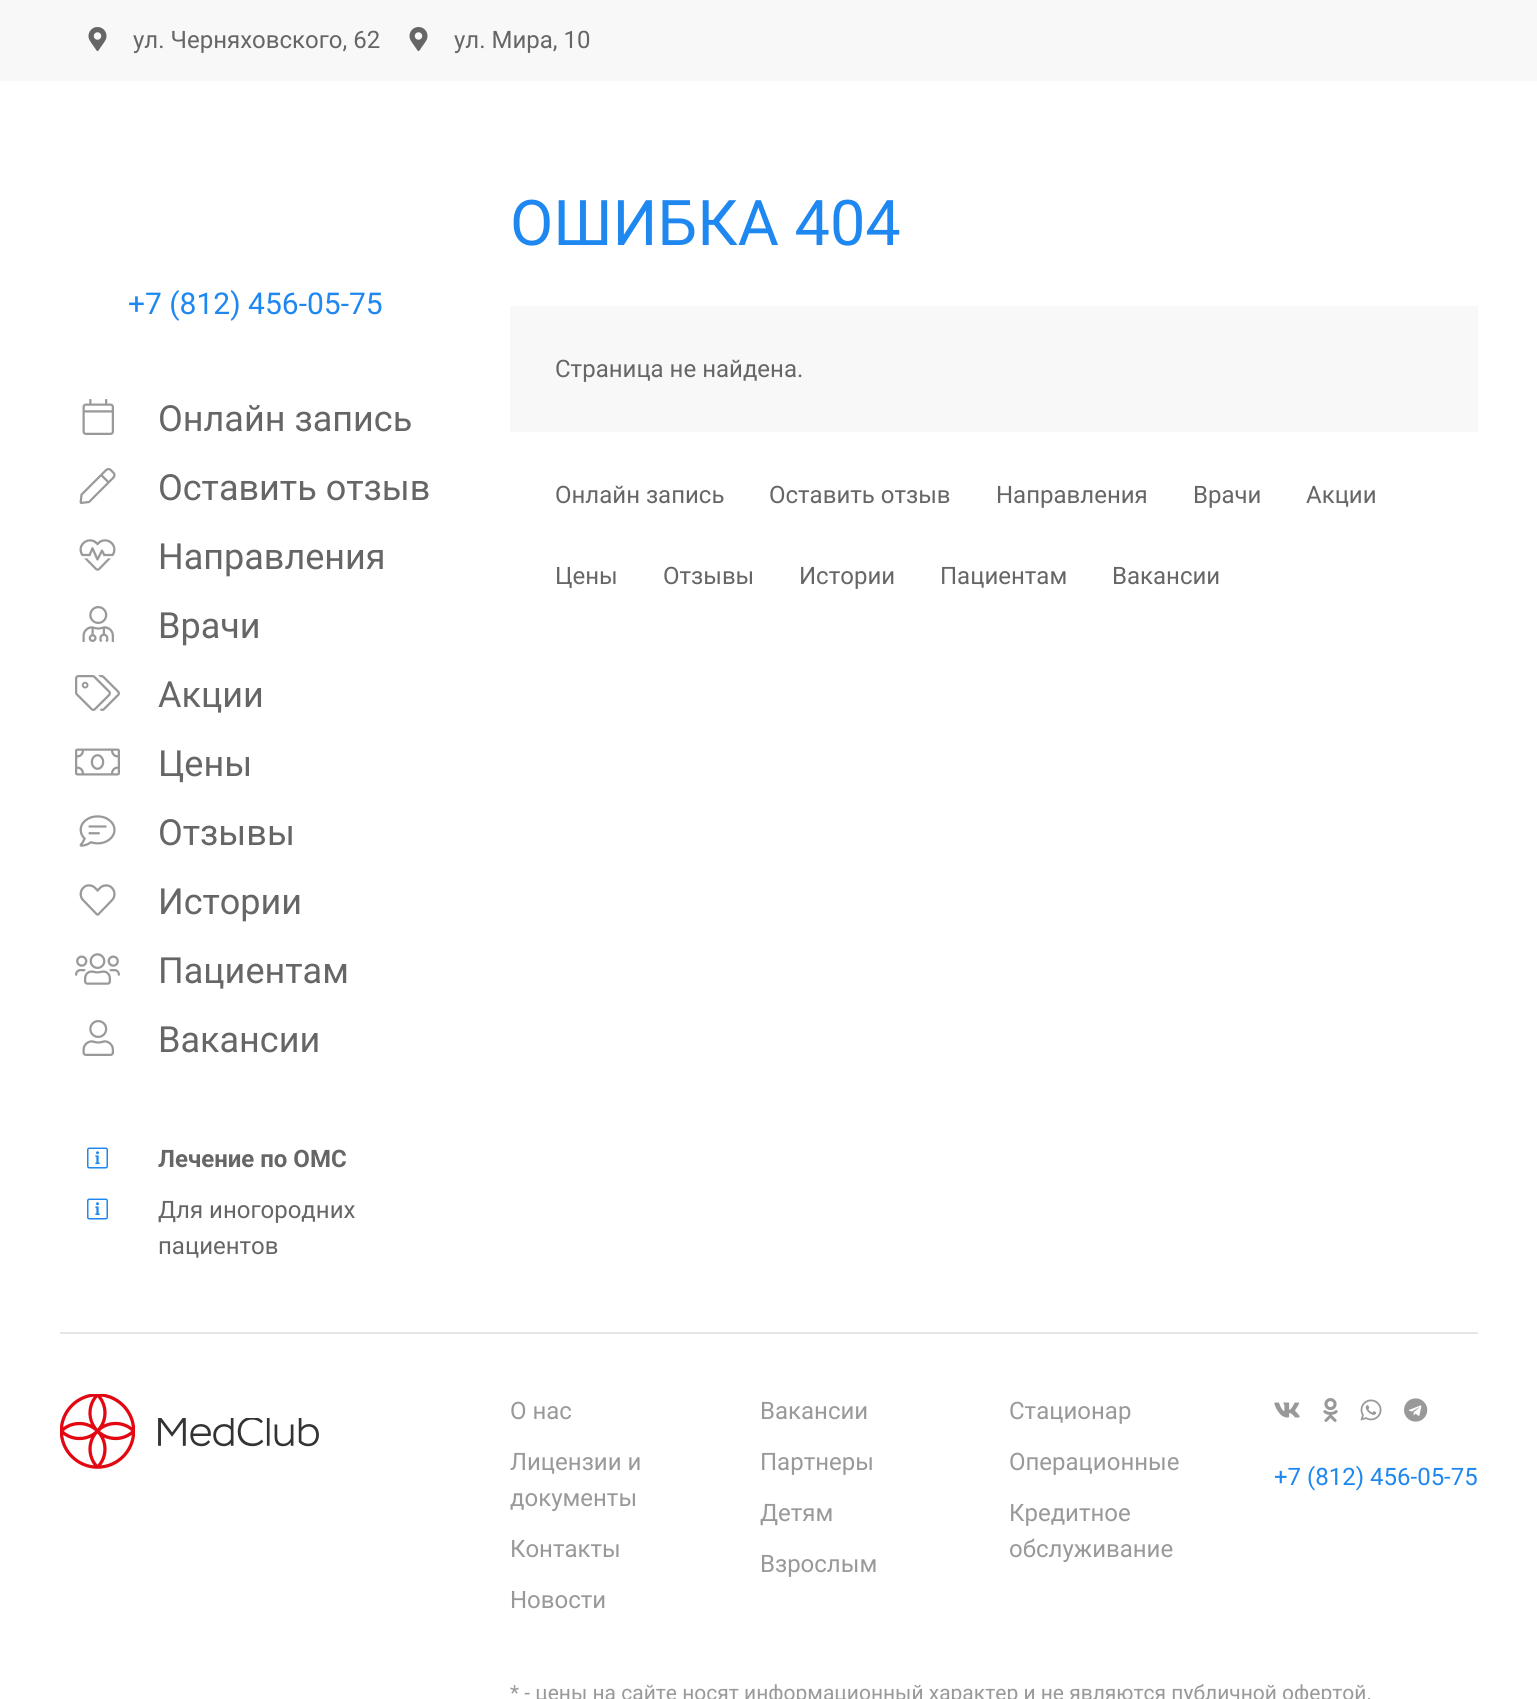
import math
import cairo


def use_color(cr, r, g, b):
  cr.set_source_rgb(r / 255, g / 255, b / 255)

def text(cr, x, y, s, family, size, color, bold=False, italic=False):
  cr.select_font_face(family, cairo.FONT_SLANT_ITALIC if italic else cairo.FONT_SLANT_NORMAL, cairo.FONT_WEIGHT_BOLD if bold else cairo.FONT_WEIGHT_NORMAL)
  cr.set_font_size(size)
  use_color(cr, *color)
  cr.move_to(x, y)
  cr.show_text(s)

def box(cr, x, y, w, h, *color):
  use_color(cr, *color)
  cr.rectangle(x, y, w, h)
  cr.fill()

def picture(cr, path, x, y, w, h):
  cr.save()
  cr.set_source_surface(cairo.ImageSurface.create_from_png(path), x, y)
  cr.rectangle(x, y, w, h)
  cr.fill()
  cr.restore()

def draw(cr):
  use_color(cr, 255, 255, 255)
  cr.paint()
  box(cr, 0, 0, 1537, 81, 248, 248, 248)
  picture(cr, "img_01.png", 88, 27, 19, 24)
  picture(cr, "img_01.png", 409, 27, 19, 24)
  picture(cr, "img_02.png", 82, 399, 32, 36)
  picture(cr, "img_03.png", 79, 468, 37, 36)
  picture(cr, "img_04.png", 79, 539, 37, 32)
  picture(cr, "img_05.png", 82, 606, 32, 36)
  picture(cr, "img_06.png", 75, 675, 45, 36)
  picture(cr, "img_07.png", 75, 748, 45, 28)
  picture(cr, "img_08.png", 79, 815, 37, 32)
  picture(cr, "img_09.png", 79, 884, 37, 32)
  picture(cr, "img_10.png", 75, 953, 45, 32)
  picture(cr, "img_11.png", 82, 1020, 32, 36)
  picture(cr, "img_12.png", 87, 1147, 21, 22)
  picture(cr, "img_12.png", 87, 1198, 21, 22)
  box(cr, 510, 306, 968, 126, 248, 248, 248)
  box(cr, 60, 1332, 1418, 2, 229, 229, 229)
  picture(cr, "img_13.png", 60, 1394, 75, 75)
  picture(cr, "img_14.png", 158, 1418, 161, 29)
  picture(cr, "img_15.png", 1274, 1402, 26, 16)
  picture(cr, "img_16.png", 1323, 1398, 15, 24)
  picture(cr, "img_17.png", 1360, 1399, 22, 22)
  picture(cr, "img_18.png", 1404, 1398, 24, 24)
  text(cr, 133, 48, "ул. Черняховского, 62", "Roboto", 24, (102, 102, 102))
  text(cr, 454, 48, "ул. Мира, 10", "Roboto", 24, (102, 102, 102))
  text(cr, 128, 314, "+7 (812) 456-05-75", "Roboto", 30, (30, 135, 240))
  text(cr, 158, 431, "Онлайн запись", "Roboto", 36, (102, 102, 102))
  text(cr, 158, 500, "Оставить отзыв", "Roboto", 36, (102, 102, 102))
  text(cr, 158, 569, "Направления", "Roboto", 36, (102, 102, 102))
  text(cr, 158, 638, "Врачи", "Roboto", 36, (102, 102, 102))
  text(cr, 158, 707, "Акции", "Roboto", 36, (102, 102, 102))
  text(cr, 158, 776, "Цены", "Roboto", 36, (102, 102, 102))
  text(cr, 158, 845, "Отзывы", "Roboto", 36, (102, 102, 102))
  text(cr, 158, 914, "Истории", "Roboto", 36, (102, 102, 102))
  text(cr, 158, 983, "Пациентам", "Roboto", 36, (102, 102, 102))
  text(cr, 158, 1052, "Вакансии", "Roboto", 36, (102, 102, 102))
  text(cr, 158, 1167, "Лечение по ОМС", "Roboto", 24, (102, 102, 102), bold=True)
  text(cr, 158, 1218, "Для иногородних", "Roboto", 24, (102, 102, 102))
  text(cr, 158, 1254, "пациентов", "Roboto", 24, (102, 102, 102))
  text(cr, 510, 245, "ОШИБКА 404", "Roboto", 63, (30, 135, 240))
  text(cr, 555, 377, "Страница не найдена.", "Roboto", 24, (102, 102, 102))
  text(cr, 555, 503, "Онлайн запись", "Roboto", 24, (102, 102, 102))
  text(cr, 769, 503, "Оставить отзыв", "Roboto", 24, (102, 102, 102))
  text(cr, 996, 503, "Направления", "Roboto", 24, (102, 102, 102))
  text(cr, 1193, 503, "Врачи", "Roboto", 24, (102, 102, 102))
  text(cr, 1306, 503, "Акции", "Roboto", 24, (102, 102, 102))
  text(cr, 555, 584, "Цены", "Roboto", 24, (102, 102, 102))
  text(cr, 663, 584, "Отзывы", "Roboto", 24, (102, 102, 102))
  text(cr, 799, 584, "Истории", "Roboto", 24, (102, 102, 102))
  text(cr, 940, 584, "Пациентам", "Roboto", 24, (102, 102, 102))
  text(cr, 1112, 584, "Вакансии", "Roboto", 24, (102, 102, 102))
  text(cr, 510, 1419, "О нас", "Roboto", 24, (153, 153, 153))
  text(cr, 760, 1419, "Вакансии", "Roboto", 24, (153, 153, 153))
  text(cr, 1009, 1419, "Стационар", "Roboto", 24, (153, 153, 153))
  text(cr, 510, 1470, "Лицензии и", "Roboto", 24, (153, 153, 153))
  text(cr, 510, 1506, "документы", "Roboto", 24, (153, 153, 153))
  text(cr, 760, 1470, "Партнеры", "Roboto", 24, (153, 153, 153))
  text(cr, 1009, 1470, "Операционные", "Roboto", 24, (153, 153, 153))
  text(cr, 510, 1557, "Контакты", "Roboto", 24, (153, 153, 153))
  text(cr, 760, 1521, "Детям", "Roboto", 24, (153, 153, 153))
  text(cr, 1009, 1521, "Кредитное", "Roboto", 24, (153, 153, 153))
  text(cr, 1009, 1557, "обслуживание", "Roboto", 24, (153, 153, 153))
  text(cr, 760, 1572, "Взрослым", "Roboto", 24, (153, 153, 153))
  text(cr, 510, 1608, "Новости", "Roboto", 24, (153, 153, 153))
  text(cr, 1274, 1485, "+7 (812) 456-05-75", "Roboto", 24, (30, 135, 240))
  text(cr, 510, 1700, "* - цены на сайте носят информационный характер и не являются публичной офертой.", "Roboto", 21, (153, 153, 153))


surface = cairo.ImageSurface(cairo.FORMAT_RGB24, 1537, 1699)
cr = cairo.Context(surface)
options = cairo.FontOptions()
options.set_hint_metrics(cairo.HINT_METRICS_OFF)
options.set_hint_style(cairo.HINT_STYLE_NONE)
cr.set_font_options(options)
cr.set_miter_limit(4)
draw(cr)
surface.write_to_png("out.png")
